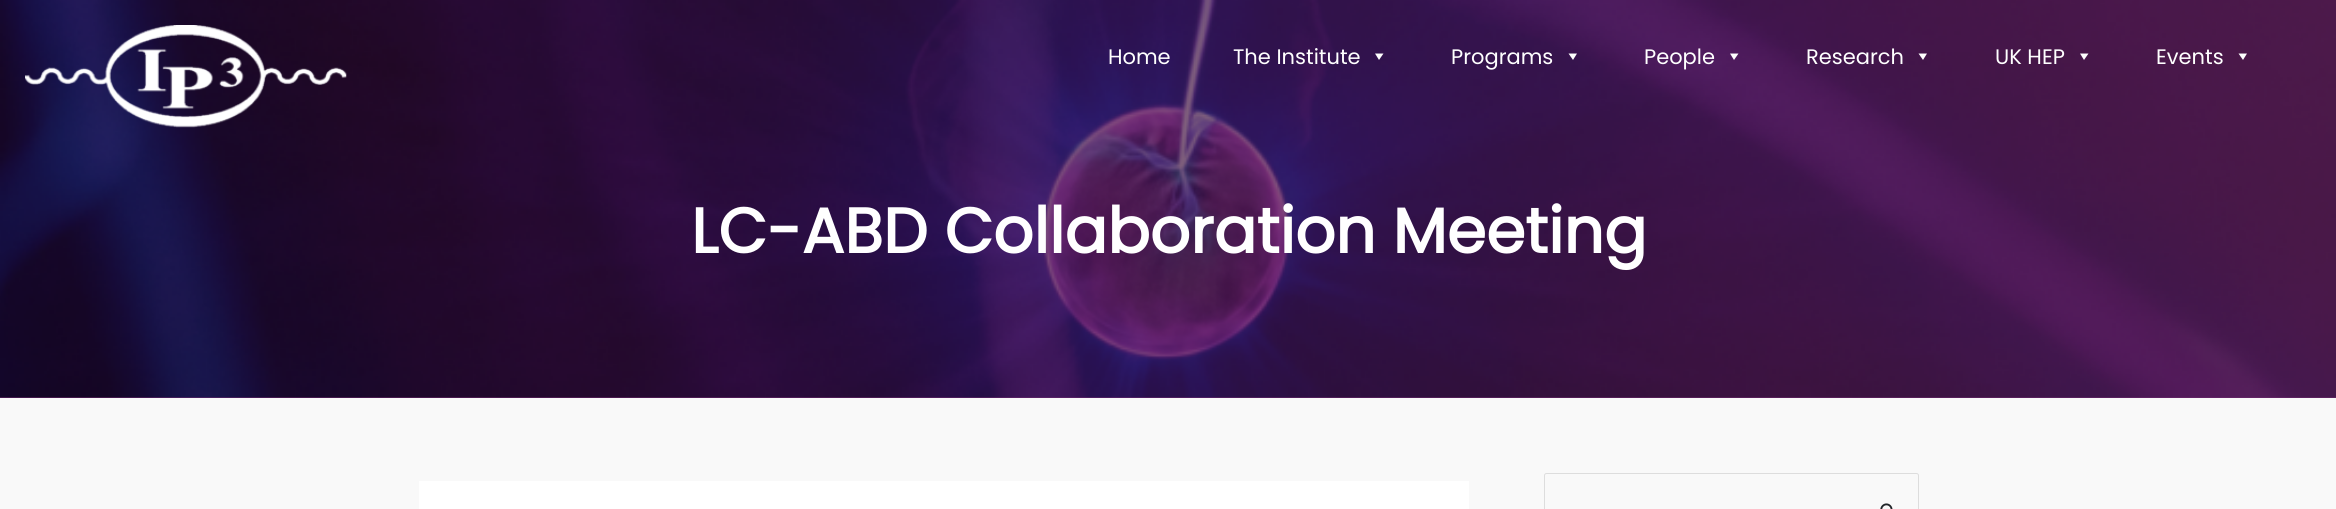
import math
import cairo


def use_color(cr, r, g, b):
  cr.set_source_rgb(r / 255, g / 255, b / 255)

def text(cr, x, y, s, family, size, color, bold=False, italic=False):
  cr.select_font_face(family, cairo.FONT_SLANT_ITALIC if italic else cairo.FONT_SLANT_NORMAL, cairo.FONT_WEIGHT_BOLD if bold else cairo.FONT_WEIGHT_NORMAL)
  cr.set_font_size(size)
  use_color(cr, *color)
  cr.move_to(x, y)
  cr.show_text(s)

def box(cr, x, y, w, h, *color):
  use_color(cr, *color)
  cr.rectangle(x, y, w, h)
  cr.fill()

def round_rect(cr, x, y, w, h, r):
  cr.new_sub_path()
  for i, (u, v) in enumerate([(x + w - r, y + h - r), (x + r, y + h - r), (x + r, y + r), (x + w - r, y + r)]):
    cr.arc(u, v, r, i * math.pi / 2, (i + 1) * math.pi / 2)
  cr.close_path()

def picture(cr, path, x, y, w, h):
  cr.save()
  cr.set_source_surface(cairo.ImageSurface.create_from_png(path), x, y)
  cr.rectangle(x, y, w, h)
  cr.fill()
  cr.restore()

def draw(cr):
  use_color(cr, 249, 249, 249)
  cr.paint()
  box(cr, 0, 397, 2336, 1, 115, 43, 112)
  picture(cr, "img_01.png", 0, 0, 2336, 398)
  picture(cr, "img_02.png", 25, 25, 322, 103)
  use_color(cr, 255, 255, 255)
  cr.new_path()
  cr.move_to(1383.5, 53.5)
  cr.line_to(1379, 60)
  cr.line_to(1375, 53.5)
  cr.close_path()
  cr.fill()
  cr.new_path()
  cr.move_to(1577, 53.5)
  cr.line_to(1573, 60)
  cr.line_to(1568.5, 53.5)
  cr.close_path()
  cr.fill()
  cr.new_path()
  cr.move_to(1738.5, 53.5)
  cr.line_to(1734, 60)
  cr.line_to(1730, 53.5)
  cr.close_path()
  cr.fill()
  cr.new_path()
  cr.move_to(1927, 53.5)
  cr.line_to(1923, 60)
  cr.line_to(1918.5, 53.5)
  cr.close_path()
  cr.fill()
  cr.new_path()
  cr.move_to(2088.5, 53.5)
  cr.line_to(2084, 60)
  cr.line_to(2080, 53.5)
  cr.close_path()
  cr.fill()
  cr.new_path()
  cr.move_to(2247, 53.5)
  cr.line_to(2243, 60)
  cr.line_to(2238.5, 53.5)
  cr.close_path()
  cr.fill()
  box(cr, 419, 481, 1050, 28, 255, 255, 255)
  round_rect(cr, 1544.5, 473.5, 374, 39, 2)
  use_color(cr, 221, 221, 221)
  cr.set_line_width(1)
  cr.stroke()
  picture(cr, "img_03.png", 1880, 503, 13, 6)
  text(cr, 1108, 64, "Home", "Poppins", 21, (255, 255, 255))
  text(cr, 1233, 64, "The Institute", "Poppins", 21, (255, 255, 255))
  text(cr, 1451, 64, "Programs", "Poppins", 21, (255, 255, 255))
  text(cr, 1644, 64, "People", "Poppins", 21, (255, 255, 255))
  text(cr, 1806, 64, "Research", "Poppins", 21, (255, 255, 255))
  text(cr, 1995, 64, "UK HEP", "Poppins", 21, (255, 255, 255))
  text(cr, 2156, 64, "Events", "Poppins", 21, (255, 255, 255))
  text(cr, 691, 253, "LC-ABD Collaboration Meeting", "Poppins", 63.1, (255, 255, 255), bold=True)


surface = cairo.ImageSurface(cairo.FORMAT_RGB24, 2336, 509)
cr = cairo.Context(surface)
options = cairo.FontOptions()
options.set_hint_metrics(cairo.HINT_METRICS_OFF)
options.set_hint_style(cairo.HINT_STYLE_NONE)
cr.set_font_options(options)
cr.set_miter_limit(4)
draw(cr)
surface.write_to_png("out.png")
